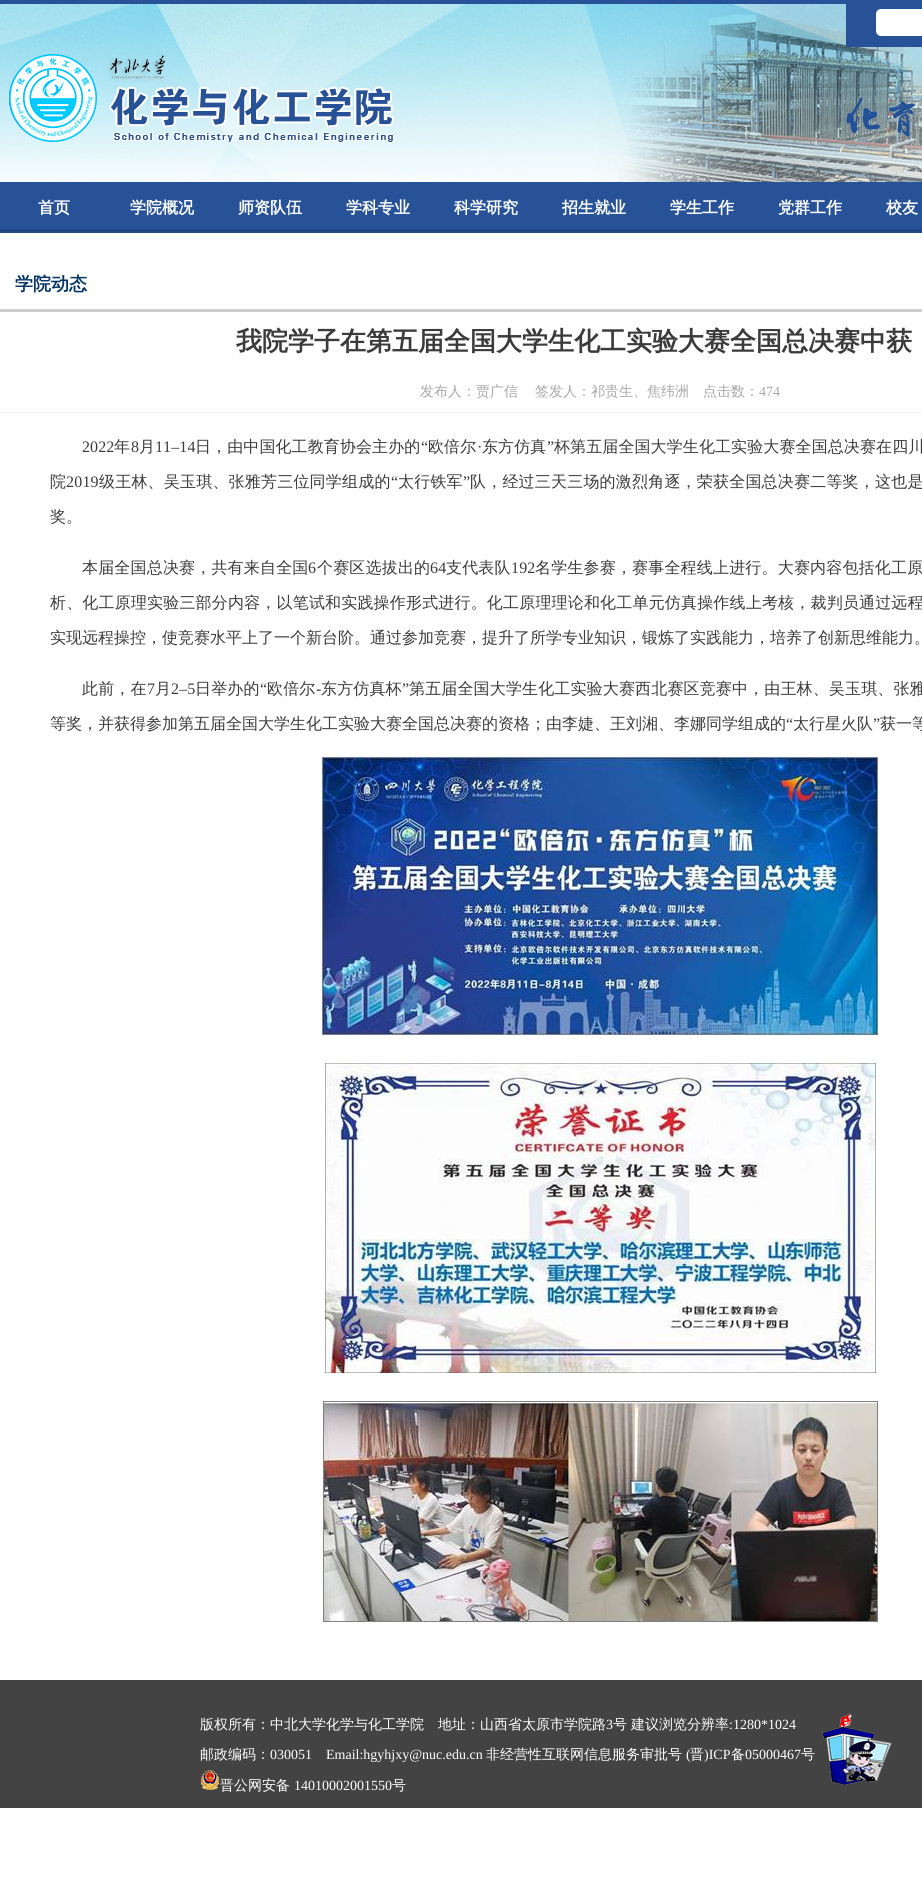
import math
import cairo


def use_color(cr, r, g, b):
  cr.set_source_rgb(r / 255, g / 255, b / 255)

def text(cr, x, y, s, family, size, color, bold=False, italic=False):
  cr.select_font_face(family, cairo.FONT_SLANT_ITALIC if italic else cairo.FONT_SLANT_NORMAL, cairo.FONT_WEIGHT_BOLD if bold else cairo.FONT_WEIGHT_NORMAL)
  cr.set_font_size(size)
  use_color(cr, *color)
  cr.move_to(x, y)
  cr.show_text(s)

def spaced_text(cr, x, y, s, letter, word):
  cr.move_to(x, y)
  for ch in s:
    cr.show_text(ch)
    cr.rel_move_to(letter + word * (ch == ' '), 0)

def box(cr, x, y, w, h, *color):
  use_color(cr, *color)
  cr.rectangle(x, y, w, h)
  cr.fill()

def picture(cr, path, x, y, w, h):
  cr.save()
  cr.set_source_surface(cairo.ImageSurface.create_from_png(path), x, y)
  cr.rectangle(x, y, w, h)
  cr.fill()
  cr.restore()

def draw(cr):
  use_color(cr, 255, 255, 255)
  cr.paint()
  box(cr, 0, 0, 922, 4, 39, 82, 151)
  picture(cr, "img_01.png", 0, 4, 922, 178)
  box(cr, 846, 4, 76, 43, 39, 82, 151)
  picture(cr, "img_02.png", 876, 9, 46, 27)
  picture(cr, "img_03.png", 8, 54, 386, 89)
  picture(cr, "img_04.png", 846, 97, 69, 40)
  picture(cr, "img_05.png", 0, 182, 922, 51)
  box(cr, 0, 309, 922, 3, 205, 205, 205)
  cr.new_path()
  cr.move_to(0, 412.5)
  cr.line_to(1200, 412.5)
  use_color(cr, 232, 232, 232)
  cr.set_line_width(1)
  cr.set_dash([1, 1])
  cr.stroke()
  picture(cr, "img_06.png", 322, 757, 556, 278)
  picture(cr, "img_07.png", 325, 1063, 551, 310)
  picture(cr, "img_08.png", 323, 1401, 555, 221)
  box(cr, 0, 1680, 922, 128, 67, 67, 67)
  picture(cr, "img_09.png", 201, 1770, 18, 20)
  picture(cr, "img_10.png", 822, 1713, 70, 73)
  text(cr, 38, 213, "首页", "WenQuanYi Zen Hei", 16, (255, 255, 255), bold=True)
  text(cr, 130, 213, "学院概况", "WenQuanYi Zen Hei", 16, (255, 255, 255), bold=True)
  text(cr, 238, 213, "师资队伍", "WenQuanYi Zen Hei", 16, (255, 255, 255), bold=True)
  text(cr, 346, 213, "学科专业", "WenQuanYi Zen Hei", 16, (255, 255, 255), bold=True)
  text(cr, 454, 213, "科学研究", "WenQuanYi Zen Hei", 16, (255, 255, 255), bold=True)
  text(cr, 562, 213, "招生就业", "WenQuanYi Zen Hei", 16, (255, 255, 255), bold=True)
  text(cr, 670, 213, "学生工作", "WenQuanYi Zen Hei", 16, (255, 255, 255), bold=True)
  text(cr, 778, 213, "党群工作", "WenQuanYi Zen Hei", 16, (255, 255, 255), bold=True)
  text(cr, 886, 213, "校友", "WenQuanYi Zen Hei", 16, (255, 255, 255), bold=True)
  text(cr, 15, 290, "学院动态", "WenQuanYi Zen Hei", 18, (4, 53, 102), bold=True)
  text(cr, 236, 350, "我院学子在第五届全国大学生化工实验大赛全国总决赛中获", "WenQuanYi Zen Hei", 26, (59, 59, 59), bold=True)
  text(cr, 420, 396, "发布人：贾广信", "WenQuanYi Zen Hei Medium", 14, (167, 167, 167))
  text(cr, 535, 396, "签发人：祁贵生、焦纬洲", "WenQuanYi Zen Hei Medium", 14, (167, 167, 167))
  text(cr, 703, 396, "点击数：", "WenQuanYi Zen Hei Medium", 14, (167, 167, 167))
  text(cr, 759, 396, "474", "Liberation Serif", 14, (167, 167, 167))
  cr.set_font_size(16)
  use_color(cr, 59, 59, 59)
  spaced_text(cr, 82, 452, "2022", 0.1, 0)
  cr.select_font_face("WenQuanYi Zen Hei Medium")
  spaced_text(cr, 114, 452, "年", 0.1, 0)
  cr.select_font_face("Liberation Serif")
  spaced_text(cr, 131, 452, "8", 0.1, 0)
  cr.select_font_face("WenQuanYi Zen Hei Medium")
  spaced_text(cr, 139, 452, "月", 0.1, 0)
  cr.select_font_face("Liberation Serif")
  spaced_text(cr, 155, 452, "11–14", 0.1, 0)
  cr.select_font_face("WenQuanYi Zen Hei Medium")
  spaced_text(cr, 195, 452, "日，由中国化工教育协会主办的", 0.1, 0)
  cr.select_font_face("Liberation Serif")
  spaced_text(cr, 421, 452, "“", 0.1, 0)
  cr.select_font_face("WenQuanYi Zen Hei Medium")
  spaced_text(cr, 428, 452, "欧倍尔", 0.1, 0)
  spaced_text(cr, 482, 452, "东方仿真", 0.1, 0)
  cr.select_font_face("Liberation Serif")
  spaced_text(cr, 547, 452, "”", 0.1, 0)
  cr.select_font_face("WenQuanYi Zen Hei Medium")
  spaced_text(cr, 554, 452, "杯第五届全国大学生化工实验大赛全国总决赛在四川", 0.1, 0)
  cr.select_font_face("Liberation Serif")
  spaced_text(cr, 477, 452, "·", 0.1, 0)
  cr.select_font_face("WenQuanYi Zen Hei Medium")
  spaced_text(cr, 50, 487, "院", 0.2, 0)
  cr.select_font_face("Liberation Serif")
  spaced_text(cr, 66, 487, "2019", 0.2, 0)
  cr.select_font_face("WenQuanYi Zen Hei Medium")
  spaced_text(cr, 99, 487, "级王林、吴玉琪、张雅芳三位同学组成的", 0.2, 0)
  cr.select_font_face("Liberation Serif")
  spaced_text(cr, 391, 487, "“", 0.2, 0)
  cr.select_font_face("WenQuanYi Zen Hei Medium")
  spaced_text(cr, 398, 487, "太行铁军", 0.2, 0)
  cr.select_font_face("Liberation Serif")
  spaced_text(cr, 463, 487, "”", 0.2, 0)
  cr.select_font_face("WenQuanYi Zen Hei Medium")
  spaced_text(cr, 470, 487, "队，经过三天三场的激烈角逐，荣获全国总决赛二等奖，这也是", 0.2, 0)
  text(cr, 50, 522, "奖。", "WenQuanYi Zen Hei Medium", 16, (59, 59, 59))
  spaced_text(cr, 82, 573, "本届全国总决赛，共有来自全国", 0.18, 0)
  cr.select_font_face("Liberation Serif")
  spaced_text(cr, 308, 573, "6", 0.18, 0)
  cr.select_font_face("WenQuanYi Zen Hei Medium")
  spaced_text(cr, 317, 573, "个赛区选拔出的", 0.18, 0)
  cr.select_font_face("Liberation Serif")
  spaced_text(cr, 430, 573, "64", 0.18, 0)
  cr.select_font_face("WenQuanYi Zen Hei Medium")
  spaced_text(cr, 446, 573, "支代表队", 0.18, 0)
  cr.select_font_face("Liberation Serif")
  spaced_text(cr, 511, 573, "192", 0.18, 0)
  cr.select_font_face("WenQuanYi Zen Hei Medium")
  spaced_text(cr, 535, 573, "名学生参赛，赛事全程线上进行。大赛内容包括化工原", 0.18, 0)
  spaced_text(cr, 50, 608, "析、化工原理实验三部分内容，以笔试和实践操作形式进行。化工原理理论和化工单元仿真操作线上考核，裁判员通过远程", 0.18, 0)
  text(cr, 50, 643, "实现远程操控，使竞赛水平上了一个新台阶。通过参加竞赛，提升了所学专业知识，锻炼了实践能力，培养了创新思维能力。", "WenQuanYi Zen Hei Medium", 16, (59, 59, 59))
  spaced_text(cr, 82, 694, "此前，在", 0.15, 0)
  cr.select_font_face("Liberation Serif")
  spaced_text(cr, 147, 694, "7", 0.15, 0)
  cr.select_font_face("WenQuanYi Zen Hei Medium")
  spaced_text(cr, 155, 694, "月", 0.15, 0)
  cr.select_font_face("Liberation Serif")
  spaced_text(cr, 171, 694, "2–5", 0.15, 0)
  cr.select_font_face("WenQuanYi Zen Hei Medium")
  spaced_text(cr, 195, 694, "日举办的", 0.15, 0)
  cr.select_font_face("Liberation Serif")
  spaced_text(cr, 260, 694, "“", 0.15, 0)
  cr.select_font_face("WenQuanYi Zen Hei Medium")
  spaced_text(cr, 267, 694, "欧倍尔", 0.15, 0)
  spaced_text(cr, 321, 694, "东方仿真杯", 0.15, 0)
  cr.select_font_face("Liberation Serif")
  spaced_text(cr, 402, 694, "”", 0.15, 0)
  cr.select_font_face("WenQuanYi Zen Hei Medium")
  spaced_text(cr, 409, 694, "第五届全国大学生化工实验大赛西北赛区竞赛中，由王林、吴玉琪、张雅", 0.15, 0)
  cr.select_font_face("Liberation Serif")
  spaced_text(cr, 316, 694, "-", 0.15, 0)
  text(cr, 50, 729, "等奖，并获得参加第五届全国大学生化工实验大赛全国总决赛的资格；由李婕、王刘湘、李娜同学组成的", "WenQuanYi Zen Hei Medium", 16, (59, 59, 59))
  text(cr, 786, 729, "“", "Liberation Serif", 16, (59, 59, 59))
  text(cr, 793, 729, "太行星火队", "WenQuanYi Zen Hei Medium", 16, (59, 59, 59))
  text(cr, 873, 729, "”", "Liberation Serif", 16, (59, 59, 59))
  text(cr, 880, 729, "获一等", "WenQuanYi Zen Hei Medium", 16, (59, 59, 59))
  text(cr, 200, 1729, "版权所有：中北大学化学与化工学院　地址：山西省太原市学院路", "WenQuanYi Zen Hei Medium", 14, (255, 255, 255))
  text(cr, 606, 1729, "3", "Liberation Serif", 14, (255, 255, 255))
  text(cr, 613, 1729, "号", "WenQuanYi Zen Hei Medium", 14, (255, 255, 255))
  text(cr, 631, 1729, "建议浏览分辨率", "WenQuanYi Zen Hei Medium", 14, (255, 255, 255))
  text(cr, 729, 1729, ":1280*1024", "Liberation Serif", 14, (255, 255, 255))
  text(cr, 200, 1759, "邮政编码：", "WenQuanYi Zen Hei Medium", 14, (255, 255, 255))
  text(cr, 270, 1759, "030051", "Liberation Serif", 14, (255, 255, 255))
  text(cr, 326, 1759, "Email:hgyhjxy@nuc.edu.cn", "Liberation Serif", 14, (255, 255, 255))
  text(cr, 486, 1759, "非经营性互联网信息服务审批号", "WenQuanYi Zen Hei Medium", 14, (255, 255, 255))
  text(cr, 686, 1759, "(", "Liberation Serif", 14, (255, 255, 255))
  text(cr, 690, 1759, "晋", "WenQuanYi Zen Hei Medium", 14, (255, 255, 255))
  text(cr, 704, 1759, ")ICP", "Liberation Serif", 14, (255, 255, 255))
  text(cr, 731, 1759, "备", "WenQuanYi Zen Hei Medium", 14, (255, 255, 255))
  text(cr, 745, 1759, "05000467", "Liberation Serif", 14, (255, 255, 255))
  text(cr, 801, 1759, "号", "WenQuanYi Zen Hei Medium", 14, (255, 255, 255))
  text(cr, 220, 1790, "晋公网安备", "WenQuanYi Zen Hei Medium", 14, (255, 255, 255))
  text(cr, 294, 1790, "14010002001550", "Liberation Serif", 14, (255, 255, 255))
  text(cr, 392, 1790, "号", "WenQuanYi Zen Hei Medium", 14, (255, 255, 255))


surface = cairo.ImageSurface(cairo.FORMAT_RGB24, 922, 1895)
cr = cairo.Context(surface)
options = cairo.FontOptions()
options.set_hint_metrics(cairo.HINT_METRICS_OFF)
options.set_hint_style(cairo.HINT_STYLE_NONE)
cr.set_font_options(options)
cr.set_miter_limit(4)
draw(cr)
surface.write_to_png("out.png")
